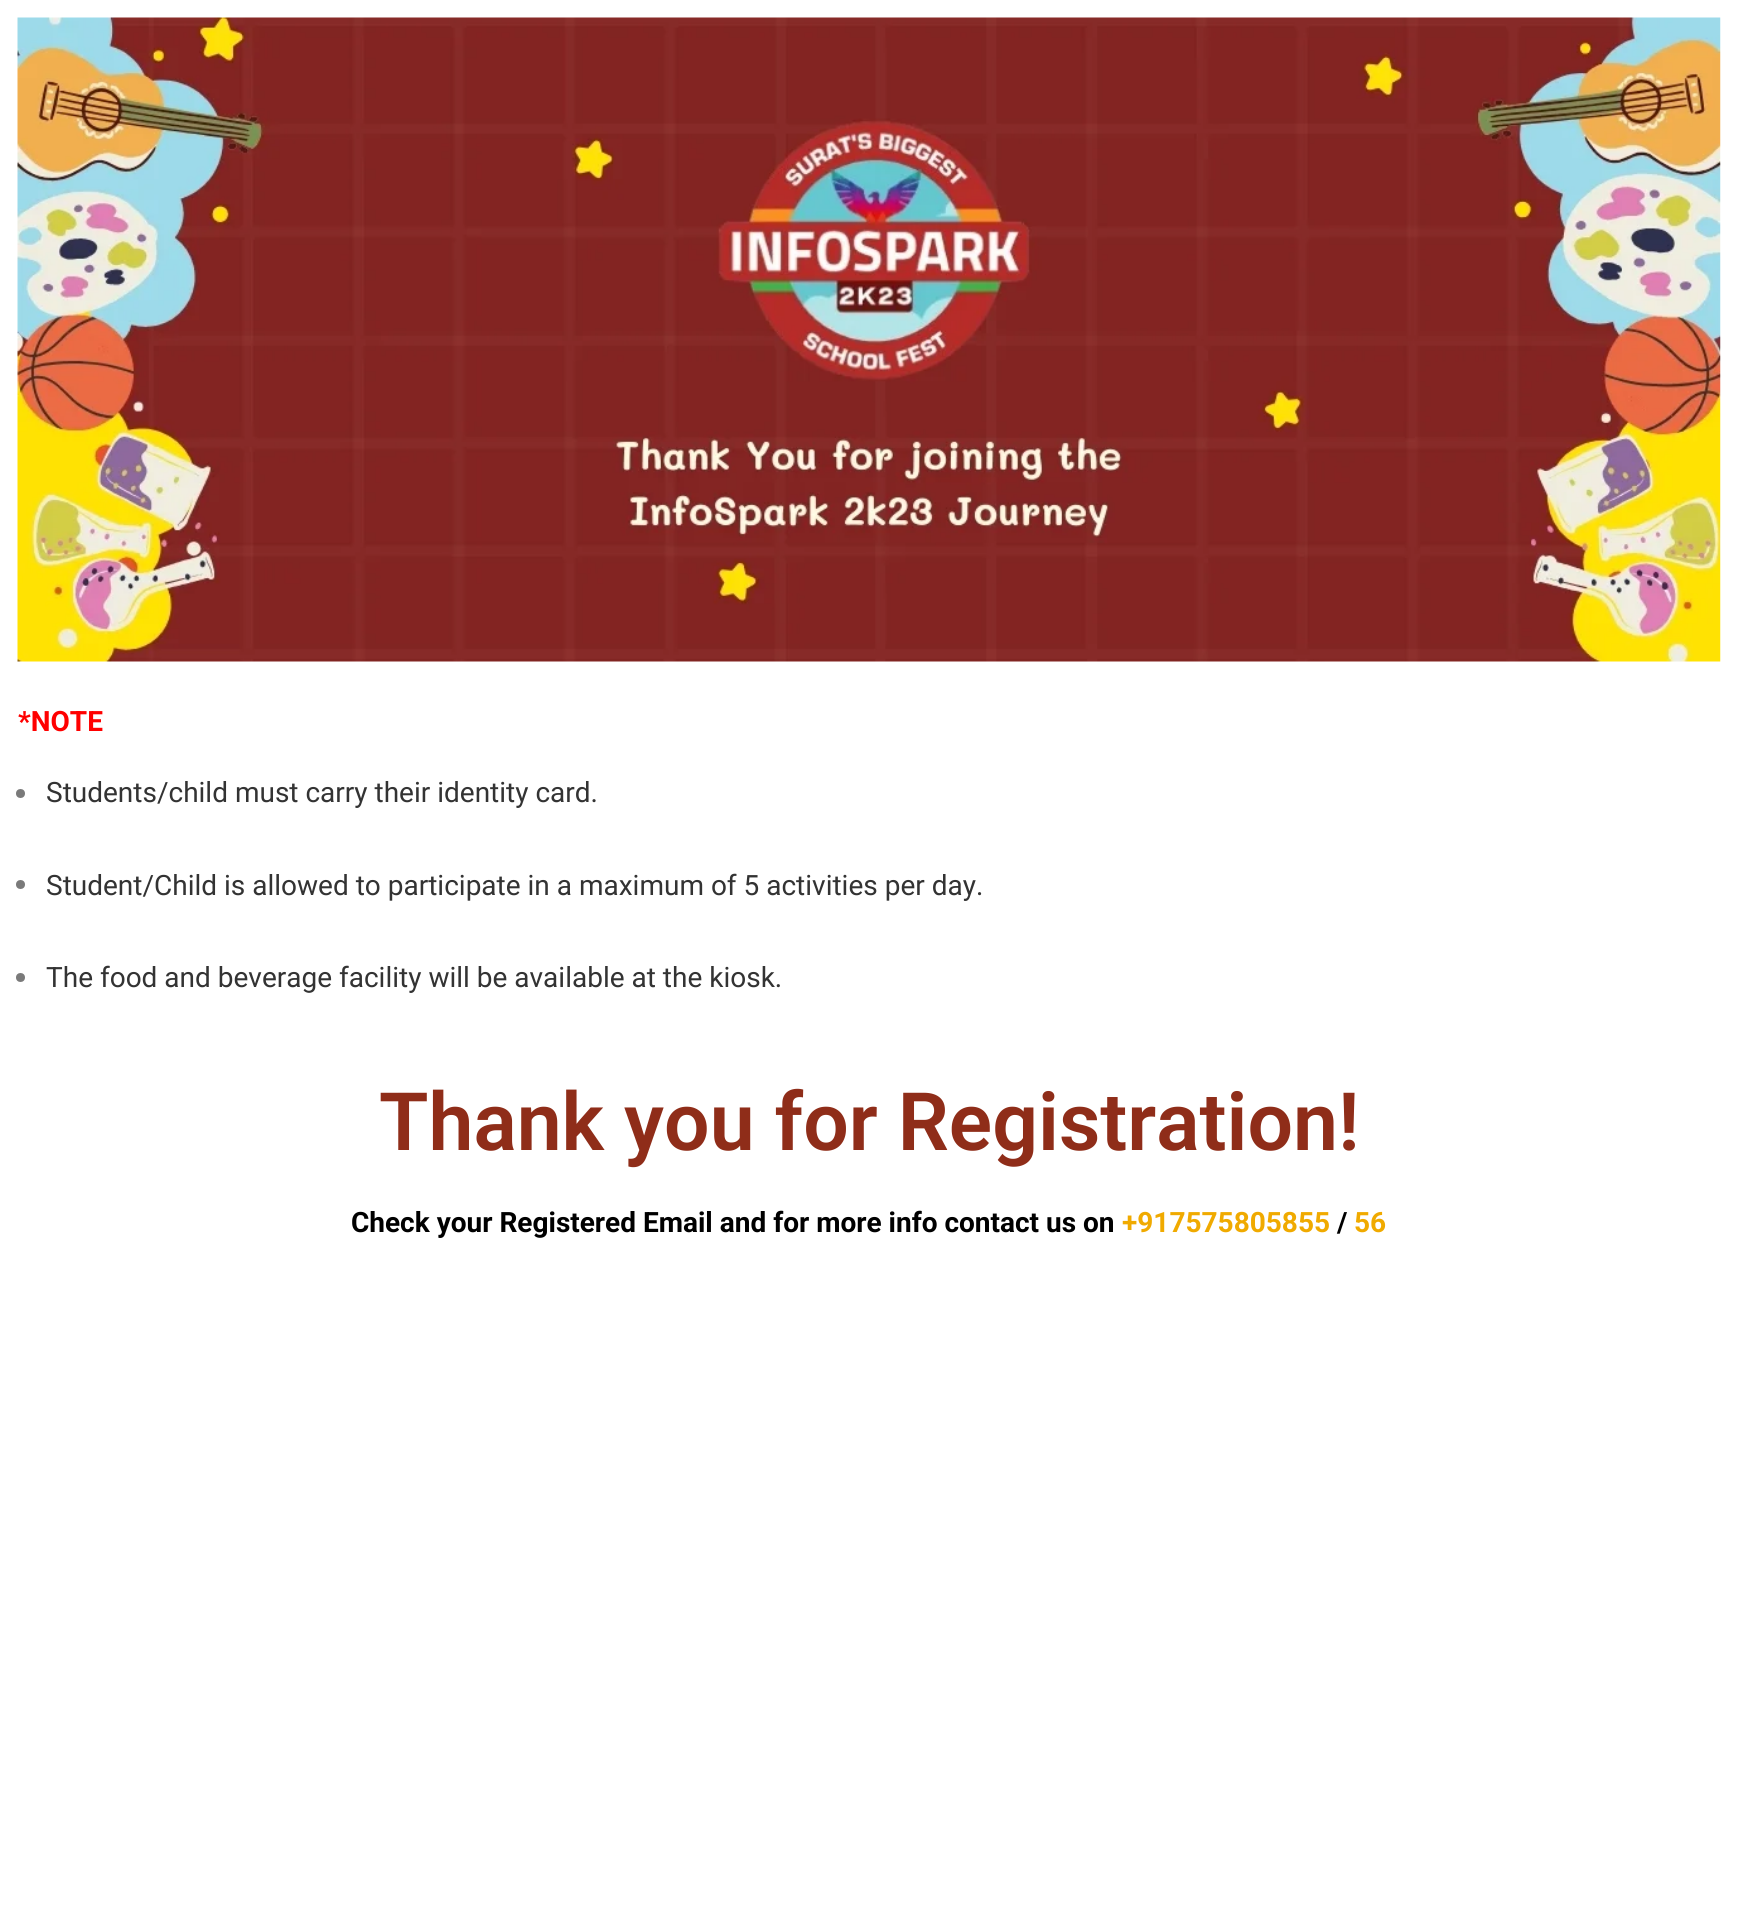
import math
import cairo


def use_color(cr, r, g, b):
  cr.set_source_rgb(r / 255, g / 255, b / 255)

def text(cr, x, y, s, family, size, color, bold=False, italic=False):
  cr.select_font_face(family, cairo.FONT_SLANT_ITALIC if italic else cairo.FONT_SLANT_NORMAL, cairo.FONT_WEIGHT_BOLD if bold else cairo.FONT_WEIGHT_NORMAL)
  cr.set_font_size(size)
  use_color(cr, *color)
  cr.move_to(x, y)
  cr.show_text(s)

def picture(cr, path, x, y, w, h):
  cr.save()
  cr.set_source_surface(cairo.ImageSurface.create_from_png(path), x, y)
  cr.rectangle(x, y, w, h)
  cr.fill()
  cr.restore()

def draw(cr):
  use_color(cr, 255, 255, 255)
  cr.paint()
  picture(cr, "img_01.png", 17, 17, 1704, 645)
  use_color(cr, 122, 122, 122)
  cr.arc(20.5, 793.5, 4.5, 0, 2 * math.pi)
  cr.fill()
  cr.arc(20.5, 884.5, 4.5, 0, 2 * math.pi)
  cr.fill()
  cr.arc(20.5, 977.5, 4.5, 0, 2 * math.pi)
  cr.fill()
  text(cr, 18, 731, "*NOTE", "Roboto", 28, (255, 0, 0), bold=True)
  text(cr, 46, 802, "Students/child must carry their identity card.", "Roboto", 28, (51, 51, 51))
  text(cr, 46, 895, "Student/Child is allowed to participate in a maximum of 5 activities per day.", "Roboto", 28, (51, 51, 51))
  text(cr, 46, 987, "The food and beverage facility will be available at the kiosk.", "Roboto", 28, (51, 51, 51))
  text(cr, 379, 1150, "Thank you for Registration!", "Roboto SemiBold", 80.5, (143, 45, 25))
  text(cr, 351, 1232, "Check your Registered Email and for more info contact us on", "Roboto", 28, (0, 0, 0), bold=True)
  text(cr, 1122, 1232, "+917575805855", "Roboto", 28, (240, 170, 0), bold=True)
  text(cr, 1337, 1232, "/", "Roboto", 28, (0, 0, 0), bold=True)
  text(cr, 1354, 1232, "56", "Roboto", 28, (240, 170, 0), bold=True)


surface = cairo.ImageSurface(cairo.FORMAT_RGB24, 1737, 1928)
cr = cairo.Context(surface)
options = cairo.FontOptions()
options.set_hint_metrics(cairo.HINT_METRICS_OFF)
options.set_hint_style(cairo.HINT_STYLE_NONE)
cr.set_font_options(options)
cr.set_miter_limit(4)
draw(cr)
surface.write_to_png("out.png")
